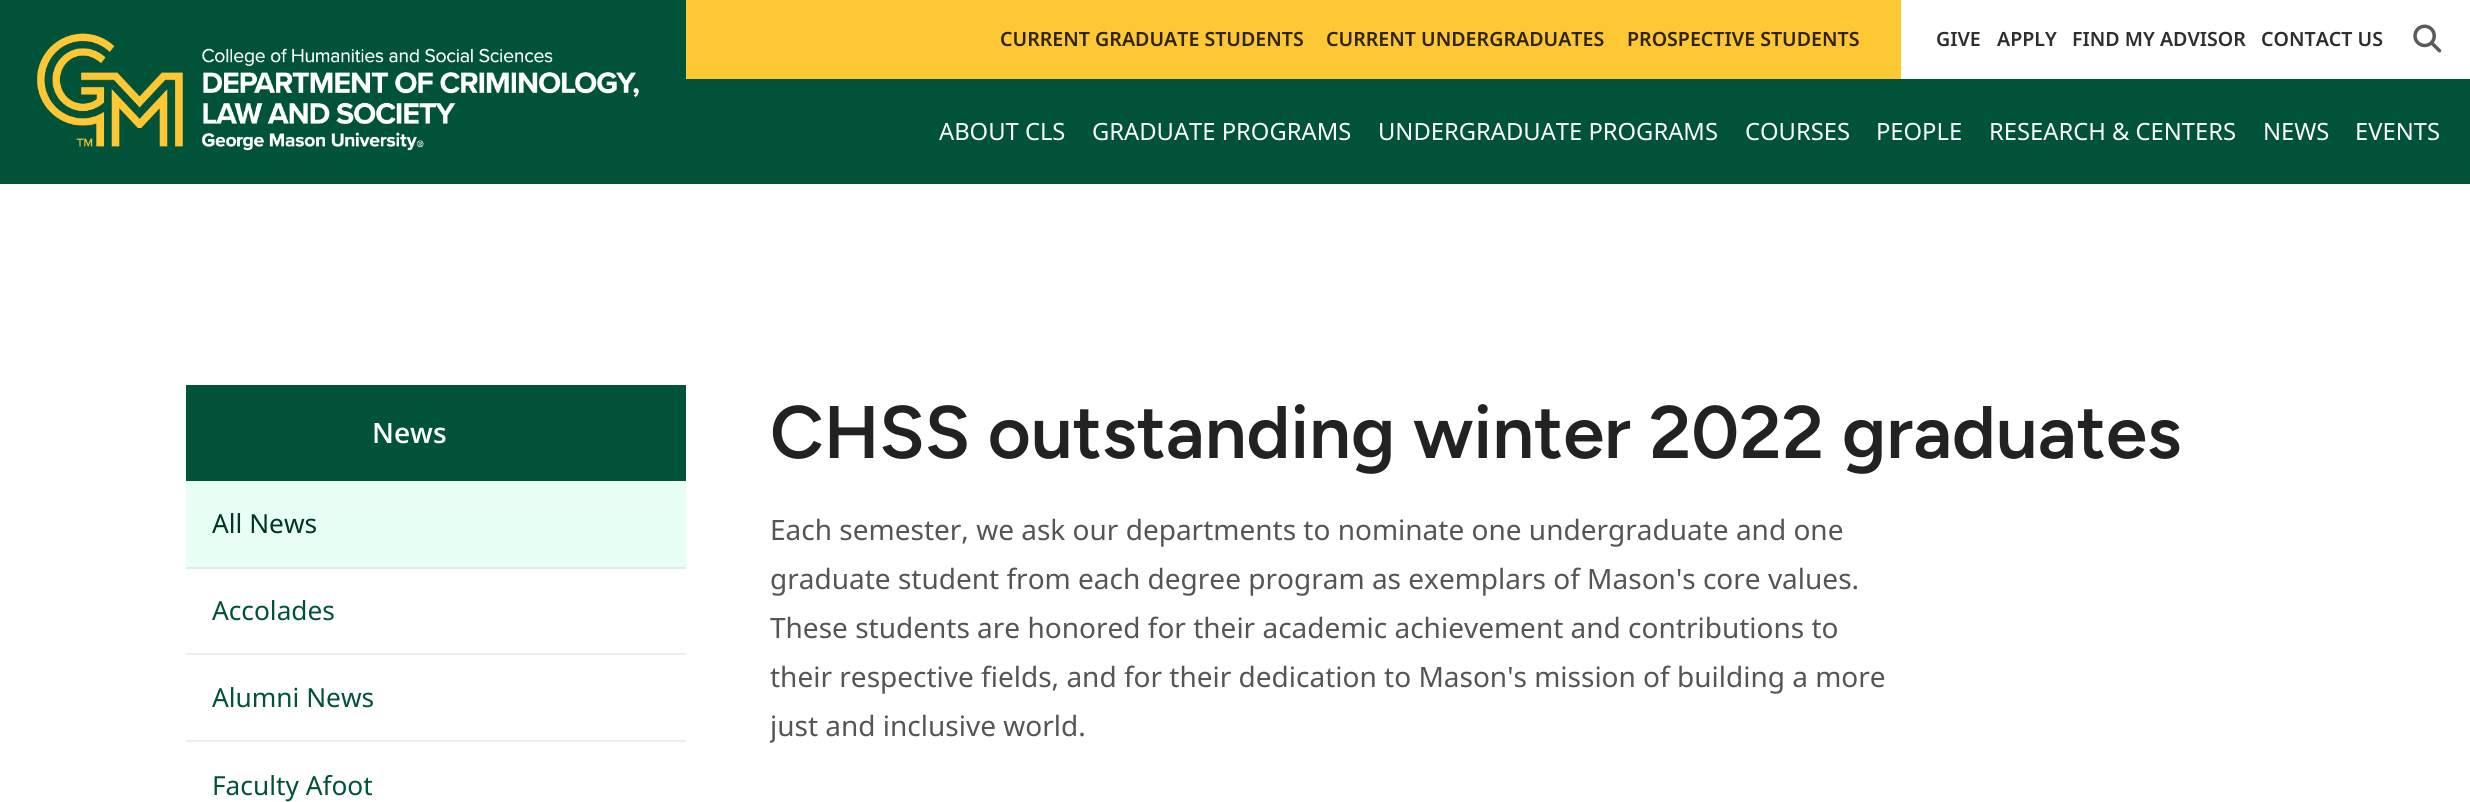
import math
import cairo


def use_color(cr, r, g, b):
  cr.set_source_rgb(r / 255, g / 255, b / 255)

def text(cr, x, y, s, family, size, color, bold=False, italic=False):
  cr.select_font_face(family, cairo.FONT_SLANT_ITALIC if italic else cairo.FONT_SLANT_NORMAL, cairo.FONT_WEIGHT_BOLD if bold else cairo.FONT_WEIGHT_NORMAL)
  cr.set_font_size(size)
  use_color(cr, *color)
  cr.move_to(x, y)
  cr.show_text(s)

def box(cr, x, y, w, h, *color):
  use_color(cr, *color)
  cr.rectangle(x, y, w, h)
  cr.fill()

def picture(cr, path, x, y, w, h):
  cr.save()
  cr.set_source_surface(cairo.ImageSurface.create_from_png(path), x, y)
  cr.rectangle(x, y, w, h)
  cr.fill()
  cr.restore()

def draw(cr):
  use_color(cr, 255, 255, 255)
  cr.paint()
  box(cr, 0, 79, 2470, 105, 0, 82, 57)
  box(cr, 0, 0, 686, 79, 0, 82, 57)
  picture(cr, "img_01.png", 36, 33, 603, 118)
  box(cr, 686, 0, 1215, 79, 254, 199, 52)
  picture(cr, "img_02.png", 2413, 24, 29, 29)
  box(cr, 186, 385, 500, 96, 0, 82, 57)
  box(cr, 186, 481, 500, 86, 232, 255, 246)
  box(cr, 186, 567, 500, 2, 221, 238, 232)
  box(cr, 186, 653, 500, 2, 235, 238, 237)
  box(cr, 186, 740, 500, 2, 235, 238, 237)
  text(cr, 1000, 46, "CURRENT GRADUATE STUDENTS", "Noto Sans SemiBold", 19.6, (46, 36, 9))
  text(cr, 1326, 46, "CURRENT UNDERGRADUATES", "Noto Sans SemiBold", 19.6, (46, 36, 9))
  text(cr, 1627, 46, "PROSPECTIVE STUDENTS", "Noto Sans SemiBold", 19.6, (46, 36, 9))
  text(cr, 1936, 46, "GIVE", "Noto Sans SemiBold", 19.6, (46, 46, 46))
  text(cr, 1997, 46, "APPLY", "Noto Sans SemiBold", 19.6, (46, 46, 46))
  text(cr, 2072, 46, "FIND MY ADVISOR", "Noto Sans SemiBold", 19.6, (46, 46, 46))
  text(cr, 2261, 46, "CONTACT US", "Noto Sans SemiBold", 19.6, (46, 46, 46))
  text(cr, 939, 140, "ABOUT CLS", "Noto Sans", 23.75, (255, 255, 255))
  text(cr, 1092, 140, "GRADUATE PROGRAMS", "Noto Sans", 23.75, (255, 255, 255))
  text(cr, 1378, 140, "UNDERGRADUATE PROGRAMS", "Noto Sans", 23.75, (255, 255, 255))
  text(cr, 1745, 140, "COURSES", "Noto Sans", 23.75, (255, 255, 255))
  text(cr, 1876, 140, "PEOPLE", "Noto Sans", 23.75, (255, 255, 255))
  text(cr, 1989, 140, "RESEARCH & CENTERS", "Noto Sans", 23.75, (255, 255, 255))
  text(cr, 2263, 140, "NEWS", "Noto Sans", 23.75, (255, 255, 255))
  text(cr, 2355, 140, "EVENTS", "Noto Sans", 23.75, (255, 255, 255))
  text(cr, 372, 443, "News", "Open Sans SemiBold", 28, (255, 255, 255))
  text(cr, 212, 533, "All News", "Noto Sans", 26.25, (0, 54, 33))
  text(cr, 212, 620, "Accolades", "Noto Sans", 26.25, (0, 82, 57))
  text(cr, 212, 707, "Alumni News", "Noto Sans", 26.25, (0, 82, 57))
  text(cr, 212, 795, "Faculty Afoot", "Noto Sans", 26.25, (0, 82, 57))
  text(cr, 770, 458, "CHSS outstanding winter 2022 graduates", "Figtree SemiBold", 74.25, (34, 34, 34))
  text(cr, 770, 540, "Each semester, we ask our departments to nominate one undergraduate and one", "Noto Sans", 28, (85, 85, 83))
  text(cr, 770, 589, "graduate student from each degree program as exemplars of Mason's core values.", "Noto Sans", 28, (85, 85, 83))
  text(cr, 770, 638, "These students are honored for their academic achievement and contributions to", "Noto Sans", 28, (85, 85, 83))
  text(cr, 770, 687, "their respective fields, and for their dedication to Mason's mission of building a more", "Noto Sans", 28, (85, 85, 83))
  cr.save()
  cr.rectangle(770, 506, 1124, 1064)
  cr.clip()
  text(cr, 770, 736, "just and inclusive world.", "Noto Sans", 28, (85, 85, 83))
  cr.restore()


surface = cairo.ImageSurface(cairo.FORMAT_RGB24, 2470, 802)
cr = cairo.Context(surface)
options = cairo.FontOptions()
options.set_hint_metrics(cairo.HINT_METRICS_OFF)
options.set_hint_style(cairo.HINT_STYLE_NONE)
cr.set_font_options(options)
cr.set_miter_limit(4)
draw(cr)
surface.write_to_png("out.png")
